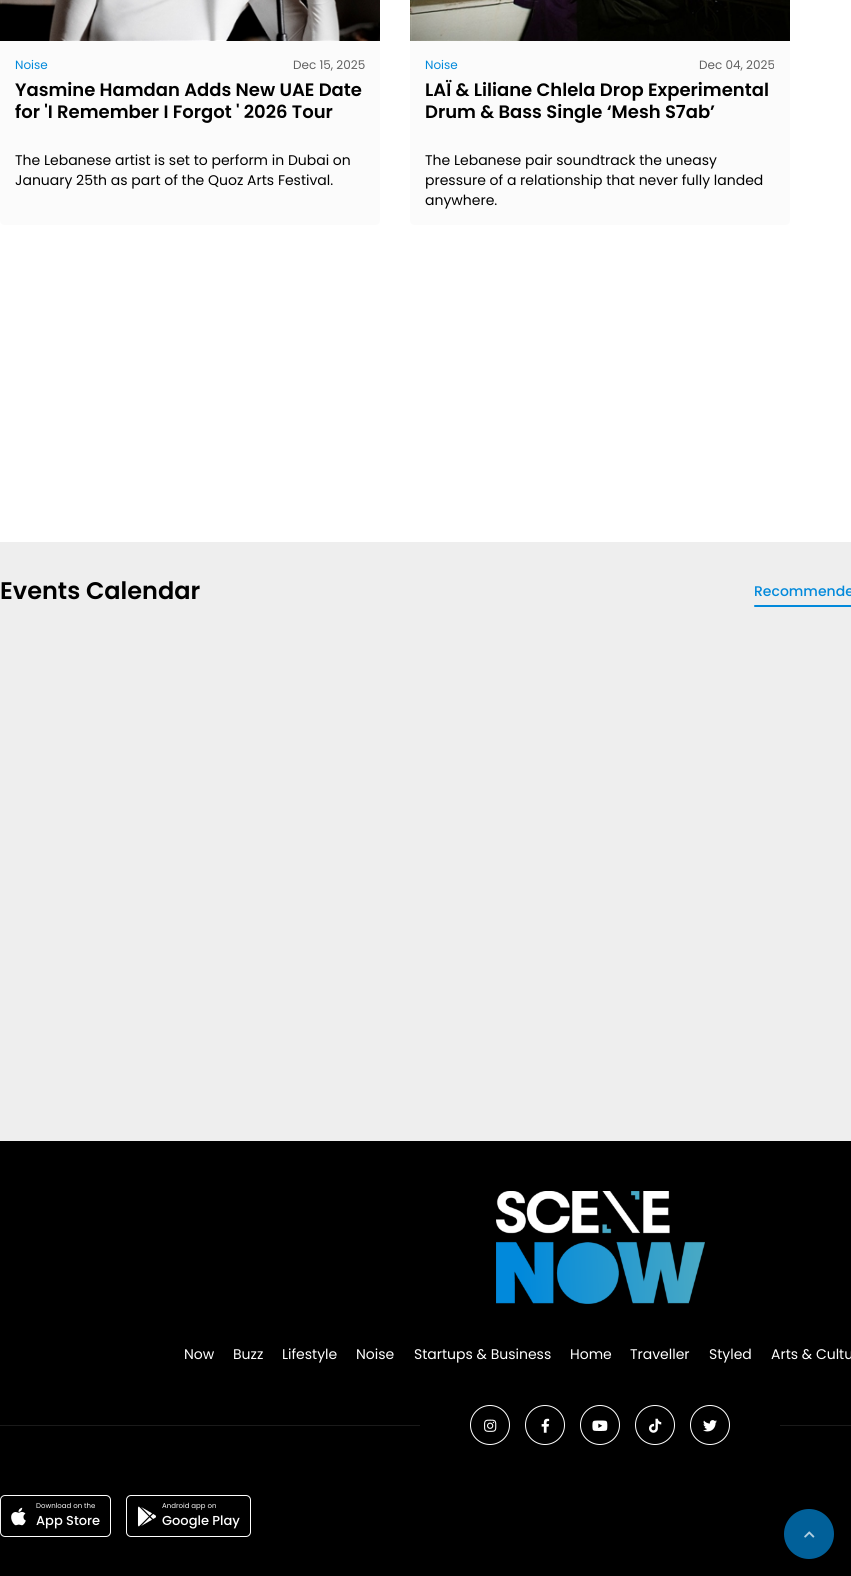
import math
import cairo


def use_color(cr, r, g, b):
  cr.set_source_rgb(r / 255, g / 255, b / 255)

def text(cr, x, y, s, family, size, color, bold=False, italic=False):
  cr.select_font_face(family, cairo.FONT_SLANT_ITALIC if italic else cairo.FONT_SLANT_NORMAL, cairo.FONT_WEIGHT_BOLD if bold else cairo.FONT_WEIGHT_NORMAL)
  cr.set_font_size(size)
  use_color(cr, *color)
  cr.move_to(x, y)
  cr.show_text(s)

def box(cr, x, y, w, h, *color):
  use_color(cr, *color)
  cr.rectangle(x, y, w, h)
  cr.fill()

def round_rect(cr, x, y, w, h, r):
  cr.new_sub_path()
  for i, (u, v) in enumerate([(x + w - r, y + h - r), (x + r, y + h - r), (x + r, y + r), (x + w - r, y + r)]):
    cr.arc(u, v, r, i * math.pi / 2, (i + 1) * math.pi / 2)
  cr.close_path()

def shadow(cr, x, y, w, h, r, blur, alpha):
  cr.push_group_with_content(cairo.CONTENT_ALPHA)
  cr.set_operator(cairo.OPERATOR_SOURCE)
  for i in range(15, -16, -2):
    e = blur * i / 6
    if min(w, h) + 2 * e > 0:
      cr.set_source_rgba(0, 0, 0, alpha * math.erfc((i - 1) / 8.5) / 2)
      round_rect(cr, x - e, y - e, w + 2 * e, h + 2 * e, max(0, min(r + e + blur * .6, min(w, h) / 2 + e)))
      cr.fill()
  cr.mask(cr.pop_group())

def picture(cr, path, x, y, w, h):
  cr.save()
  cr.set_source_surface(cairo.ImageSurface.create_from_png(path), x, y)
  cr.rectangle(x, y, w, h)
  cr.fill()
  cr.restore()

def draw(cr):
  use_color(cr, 255, 255, 255)
  cr.paint()
  picture(cr, "img_01.png", 0, 0, 380, 41)
  use_color(cr, 251, 251, 251)
  cr.new_path()
  cr.move_to(0, 41)
  cr.line_to(380, 41)
  cr.line_to(380, 220)
  cr.curve_to(380, 223, 378, 225, 375, 225)
  cr.line_to(5, 225)
  cr.curve_to(2, 225, 0, 223, 0, 220)
  cr.close_path()
  cr.fill()
  picture(cr, "img_02.png", 410, 0, 380, 41)
  cr.new_path()
  cr.move_to(410, 41)
  cr.line_to(790, 41)
  cr.line_to(790, 220)
  cr.curve_to(790, 223, 788, 225, 785, 225)
  cr.line_to(415, 225)
  cr.curve_to(412, 225, 410, 223, 410, 220)
  cr.close_path()
  cr.fill()
  box(cr, 0, 542, 851, 599, 238, 238, 238)
  use_color(cr, 1, 137, 219)
  round_rect(cr, 754, 605, 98, 2, 1)
  cr.fill()
  box(cr, 0, 1141, 851, 435, 0, 0, 0)
  box(cr, 0, 1425, 420, 1, 26, 26, 26)
  round_rect(cr, 0.5, 1495.5, 110, 41, 4.5)
  use_color(cr, 255, 255, 255)
  cr.set_line_width(1)
  cr.stroke()
  picture(cr, "img_09.png", 11, 1507, 15, 19)
  use_color(cr, 0, 0, 0)
  shadow(cr, -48, 1334, 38, 227, 10, 12.5, 0.29)
  picture(cr, "img_03.png", 496, 1191, 209, 113)
  cr.arc(490, 1425, 19.5, 0, 2 * math.pi)
  use_color(cr, 255, 255, 255)
  cr.stroke()
  picture(cr, "img_04.png", 484, 1419, 13, 13)
  cr.arc(545, 1425, 19.5, 0, 2 * math.pi)
  cr.stroke()
  picture(cr, "img_05.png", 541, 1418, 9, 15)
  cr.arc(600, 1425, 19.5, 0, 2 * math.pi)
  cr.stroke()
  picture(cr, "img_06.png", 592, 1420, 16, 11)
  cr.arc(655, 1425, 19.5, 0, 2 * math.pi)
  cr.stroke()
  picture(cr, "img_07.png", 649, 1418, 13, 15)
  cr.arc(710, 1425, 19.5, 0, 2 * math.pi)
  cr.stroke()
  picture(cr, "img_08.png", 703, 1420, 14, 12)
  box(cr, 780, 1425, 71, 1, 26, 26, 26)
  round_rect(cr, 126.5, 1495.5, 124, 41, 4.5)
  use_color(cr, 255, 255, 255)
  cr.stroke()
  picture(cr, "img_10.png", 137, 1506, 19, 21)
  use_color(cr, 1, 96, 153)
  cr.arc(809, 1534, 25, 0, 2 * math.pi)
  cr.fill()
  picture(cr, "img_11.png", 804, 1531, 11, 7)
  text(cr, 15, 69, "Noise", "Poppins", 12, (1, 137, 219))
  text(cr, 293, 69, "Dec 15, 2025", "Poppins", 12, (96, 96, 96))
  text(cr, 15, 96, "Yasmine Hamdan Adds New UAE Date", "Poppins SemiBold", 18, (0, 0, 0))
  text(cr, 15, 118, "for 'I Remember I Forgot ' 2026 Tour", "Poppins SemiBold", 18, (0, 0, 0))
  text(cr, 15, 165, "The Lebanese artist is set to perform in Dubai on", "Poppins", 14, (0, 0, 0))
  text(cr, 15, 185, "January 25th as part of the Quoz Arts Festival.", "Poppins", 14, (0, 0, 0))
  text(cr, 425, 69, "Noise", "Poppins", 12, (1, 137, 219))
  text(cr, 699, 69, "Dec 04, 2025", "Poppins", 12, (96, 96, 96))
  text(cr, 425, 96, "LAÏ & Liliane Chlela Drop Experimental", "Poppins SemiBold", 18, (0, 0, 0))
  text(cr, 425, 118, "Drum & Bass Single ‘Mesh S7ab’", "Poppins SemiBold", 18, (0, 0, 0))
  text(cr, 425, 165, "The Lebanese pair soundtrack the uneasy", "Poppins", 14, (0, 0, 0))
  text(cr, 425, 185, "pressure of a relationship that never fully landed", "Poppins", 14, (0, 0, 0))
  text(cr, 425, 205, "anywhere.", "Poppins", 14, (0, 0, 0))
  text(cr, 0, 599, "Events Calendar", "Poppins SemiBold", 24, (0, 0, 0))
  text(cr, 754, 596, "Recommende", "Poppins Medium", 14, (1, 137, 219))
  text(cr, 184, 1359, "Now", "Poppins", 14, (255, 255, 255))
  text(cr, 233, 1359, "Buzz", "Poppins", 14, (255, 255, 255))
  text(cr, 282, 1359, "Lifestyle", "Poppins", 14, (255, 255, 255))
  text(cr, 356, 1359, "Noise", "Poppins", 14, (255, 255, 255))
  text(cr, 414, 1359, "Startups & Business", "Poppins", 14, (255, 255, 255))
  text(cr, 570, 1359, "Home", "Poppins", 14, (255, 255, 255))
  text(cr, 630, 1359, "Traveller", "Poppins", 14, (255, 255, 255))
  text(cr, 709, 1359, "Styled", "Poppins", 14, (255, 255, 255))
  text(cr, 771, 1359, "Arts & Cultu", "Poppins", 14, (255, 255, 255))
  text(cr, 36, 1508, "Download on the", "Poppins", 7, (255, 255, 255))
  text(cr, 36, 1525, "App Store", "Poppins Medium", 13, (255, 255, 255))
  text(cr, 162, 1508, "Android app on", "Poppins", 7, (255, 255, 255))
  text(cr, 162, 1525, "Google Play", "Poppins Medium", 13, (255, 255, 255))


surface = cairo.ImageSurface(cairo.FORMAT_RGB24, 851, 1576)
cr = cairo.Context(surface)
options = cairo.FontOptions()
options.set_hint_metrics(cairo.HINT_METRICS_OFF)
options.set_hint_style(cairo.HINT_STYLE_NONE)
cr.set_font_options(options)
cr.set_miter_limit(4)
draw(cr)
surface.write_to_png("out.png")
